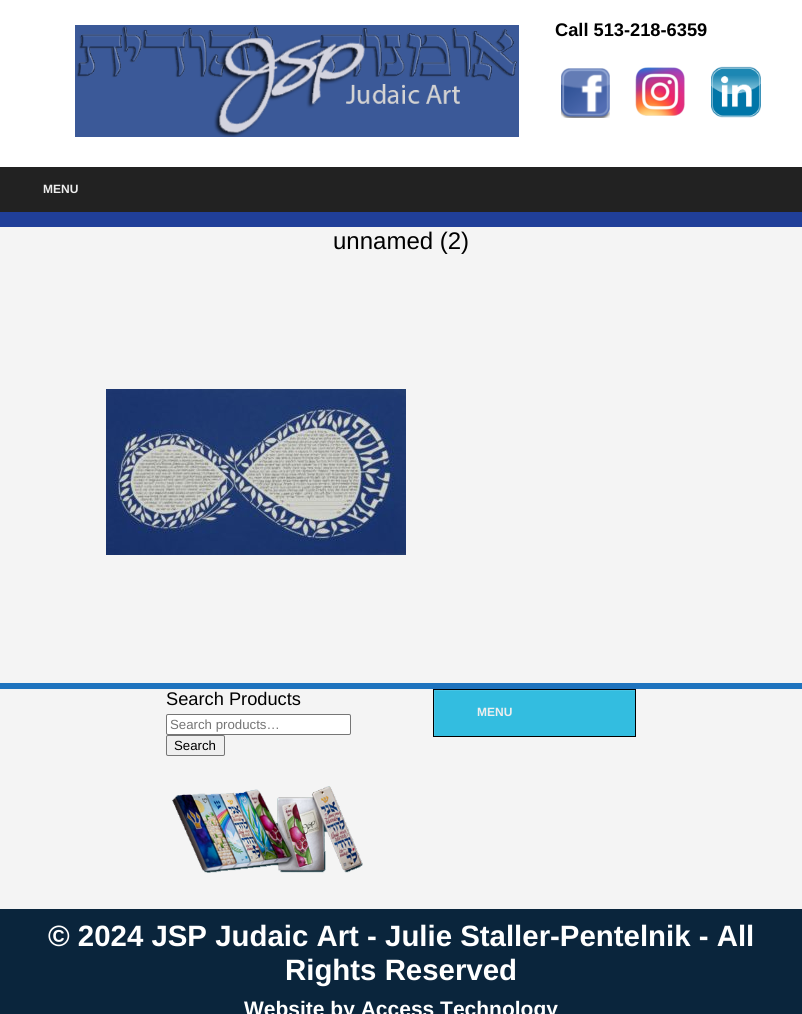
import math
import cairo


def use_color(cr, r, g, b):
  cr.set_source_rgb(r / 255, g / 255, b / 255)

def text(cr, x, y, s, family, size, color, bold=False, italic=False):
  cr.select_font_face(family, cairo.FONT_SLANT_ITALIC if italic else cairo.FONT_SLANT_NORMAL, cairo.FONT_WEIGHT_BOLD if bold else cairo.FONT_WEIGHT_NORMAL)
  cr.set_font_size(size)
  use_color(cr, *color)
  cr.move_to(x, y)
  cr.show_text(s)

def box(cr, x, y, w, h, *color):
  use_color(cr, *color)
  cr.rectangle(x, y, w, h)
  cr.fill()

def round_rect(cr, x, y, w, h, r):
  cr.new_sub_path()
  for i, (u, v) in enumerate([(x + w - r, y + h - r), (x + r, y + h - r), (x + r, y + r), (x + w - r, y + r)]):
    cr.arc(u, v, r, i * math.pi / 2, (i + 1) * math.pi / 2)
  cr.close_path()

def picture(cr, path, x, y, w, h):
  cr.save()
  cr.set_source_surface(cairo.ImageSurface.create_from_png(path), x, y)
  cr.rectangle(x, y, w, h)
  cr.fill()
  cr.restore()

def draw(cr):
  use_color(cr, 255, 255, 255)
  cr.paint()
  picture(cr, "img_01.png", 75, 25, 444, 112)
  picture(cr, "img_02.png", 561, 68, 49, 50)
  picture(cr, "img_03.png", 635, 67, 50, 49)
  picture(cr, "img_04.png", 711, 66, 50, 52)
  box(cr, 0, 212, 802, 15, 32, 63, 153)
  box(cr, 0, 167, 802, 45, 34, 34, 34)
  box(cr, 0, 227, 802, 456, 244, 244, 244)
  picture(cr, "img_05.png", 106, 389, 300, 166)
  box(cr, 0, 689, 802, 220, 244, 244, 244)
  box(cr, 0, 683, 802, 6, 30, 115, 190)
  use_color(cr, 255, 255, 255)
  round_rect(cr, 166.5, 714.5, 184, 20, 1.5)
  cr.fill_preserve()
  use_color(cr, 118, 118, 118)
  cr.set_line_width(1)
  cr.stroke()
  use_color(cr, 239, 239, 239)
  round_rect(cr, 166.5, 735.5, 58, 20, 1.5)
  cr.fill_preserve()
  use_color(cr, 118, 118, 118)
  cr.stroke()
  picture(cr, "img_06.png", 172, 786, 191, 87)
  box(cr, 435, 691, 200, 45, 51, 189, 224)
  cr.save()
  cr.rectangle(434, 690, 201, 46)
  cr.clip()
  use_color(cr, 71, 196, 227)
  cr.set_fill_rule(cairo.FILL_RULE_EVEN_ODD)
  cr.new_path()
  cr.move_to(335, 591)
  cr.line_to(734, 591)
  cr.line_to(734, 835)
  cr.line_to(335, 835)
  cr.close_path()
  cr.move_to(435, 691)
  cr.line_to(636, 691)
  cr.line_to(636, 737)
  cr.line_to(435, 737)
  cr.close_path()
  cr.fill()
  cr.restore()
  cr.rectangle(433.5, 689.5, 202, 47)
  use_color(cr, 0, 0, 0)
  cr.stroke()
  box(cr, 0, 909, 802, 105, 10, 37, 60)
  text(cr, 555, 36, "Call 513-218-6359", "Liberation Sans", 18.25, (0, 0, 0), bold=True)
  text(cr, 43, 193, "MENU", "Liberation Sans", 12, (238, 238, 238), bold=True)
  text(cr, 333, 249, "unnamed (2)", "Liberation Sans", 24, (0, 0, 0))
  text(cr, 166, 705, "Search Products", "Liberation Sans", 18.25, (0, 0, 0))
  text(cr, 170, 729, "Search products…", "Liberation Sans", 13.25, (117, 117, 117))
  text(cr, 174, 750, "Search", "Liberation Sans", 13.25, (0, 0, 0))
  text(cr, 477, 716, "MENU", "Liberation Sans", 12, (238, 238, 238), bold=True)
  text(cr, 48, 946, "© 2024 JSP Judaic Art - Julie Staller-Pentelnik - All", "Liberation Sans", 29.4, (255, 255, 255), bold=True)
  text(cr, 285, 980, "Rights Reserved", "Liberation Sans", 29.4, (255, 255, 255), bold=True)
  text(cr, 244, 1016, "Website by Access Technology", "Liberation Sans", 21, (255, 255, 255), bold=True)


surface = cairo.ImageSurface(cairo.FORMAT_RGB24, 802, 1014)
cr = cairo.Context(surface)
options = cairo.FontOptions()
options.set_hint_metrics(cairo.HINT_METRICS_OFF)
options.set_hint_style(cairo.HINT_STYLE_NONE)
cr.set_font_options(options)
cr.set_miter_limit(4)
draw(cr)
surface.write_to_png("out.png")
